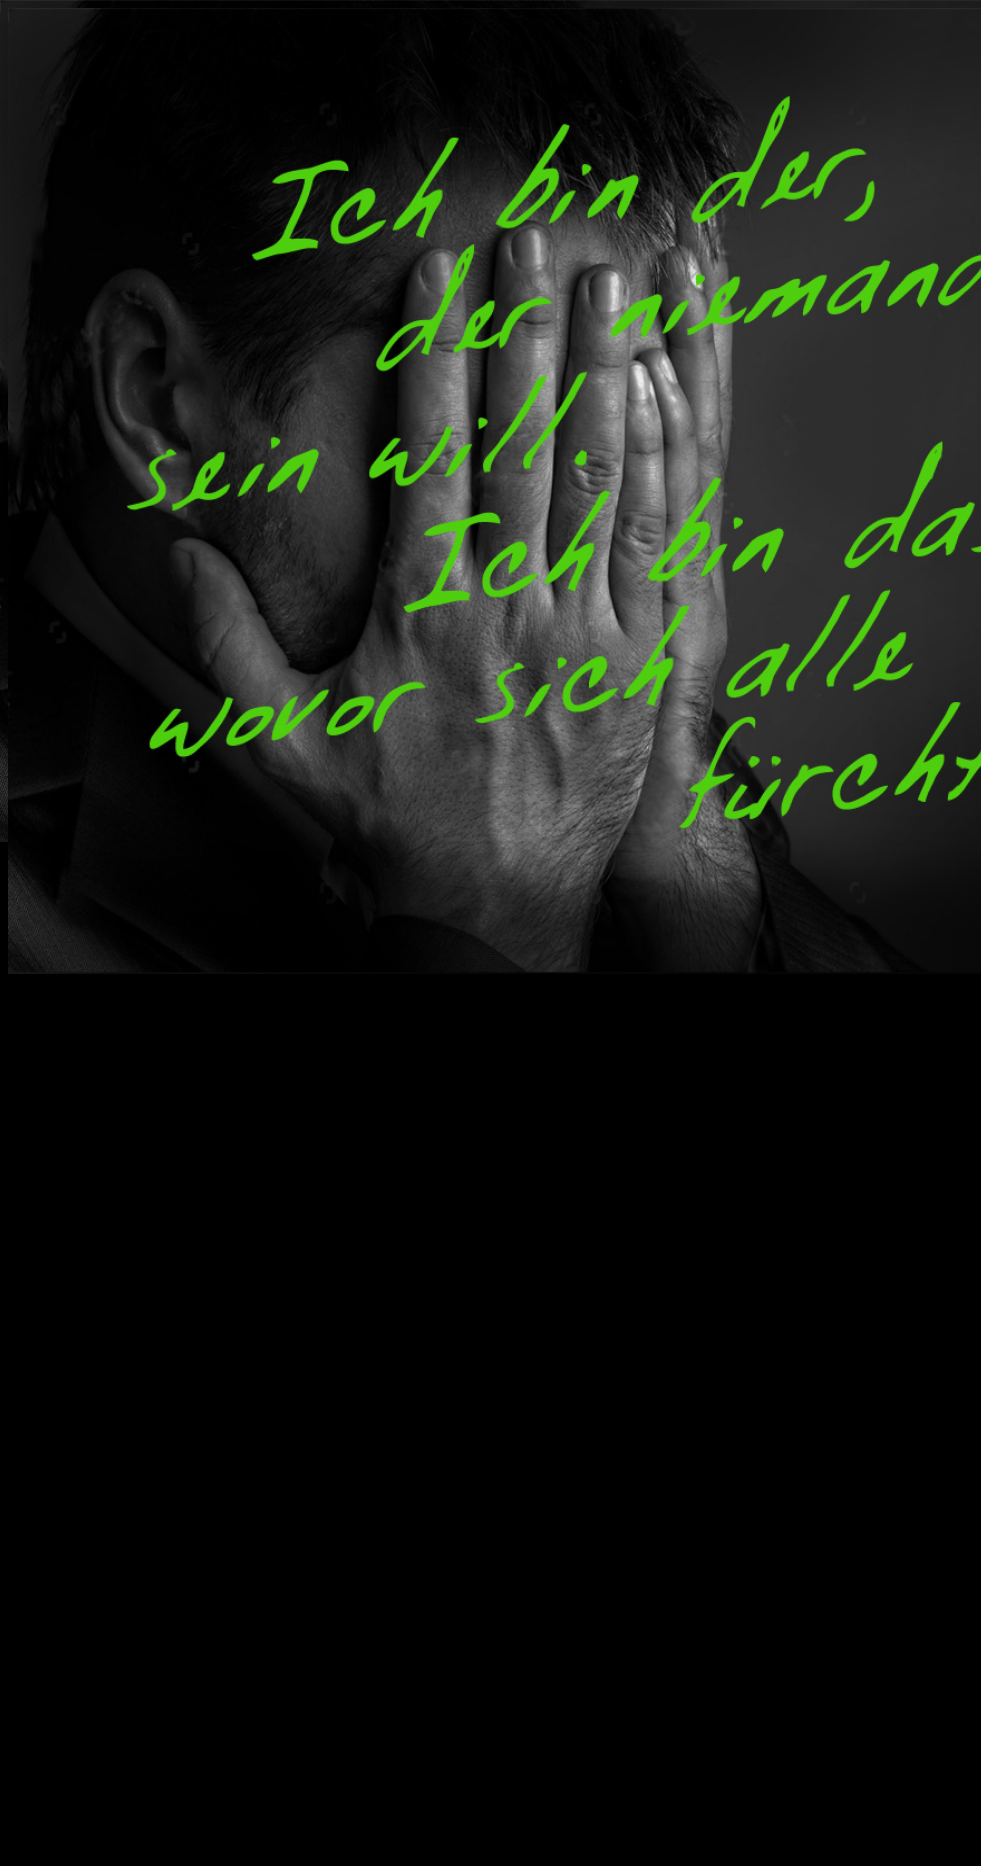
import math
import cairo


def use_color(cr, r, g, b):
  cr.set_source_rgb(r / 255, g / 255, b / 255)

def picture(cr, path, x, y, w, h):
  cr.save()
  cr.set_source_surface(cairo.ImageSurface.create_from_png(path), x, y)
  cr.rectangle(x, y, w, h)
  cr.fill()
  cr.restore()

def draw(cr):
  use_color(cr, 0, 0, 0)
  cr.paint()
  picture(cr, "img_01.png", 0, 0, 981, 842)
  picture(cr, "img_02.png", 8, 8, 973, 966)


surface = cairo.ImageSurface(cairo.FORMAT_RGB24, 981, 1866)
cr = cairo.Context(surface)
options = cairo.FontOptions()
options.set_hint_metrics(cairo.HINT_METRICS_OFF)
options.set_hint_style(cairo.HINT_STYLE_NONE)
cr.set_font_options(options)
cr.set_miter_limit(4)
draw(cr)
surface.write_to_png("out.png")
